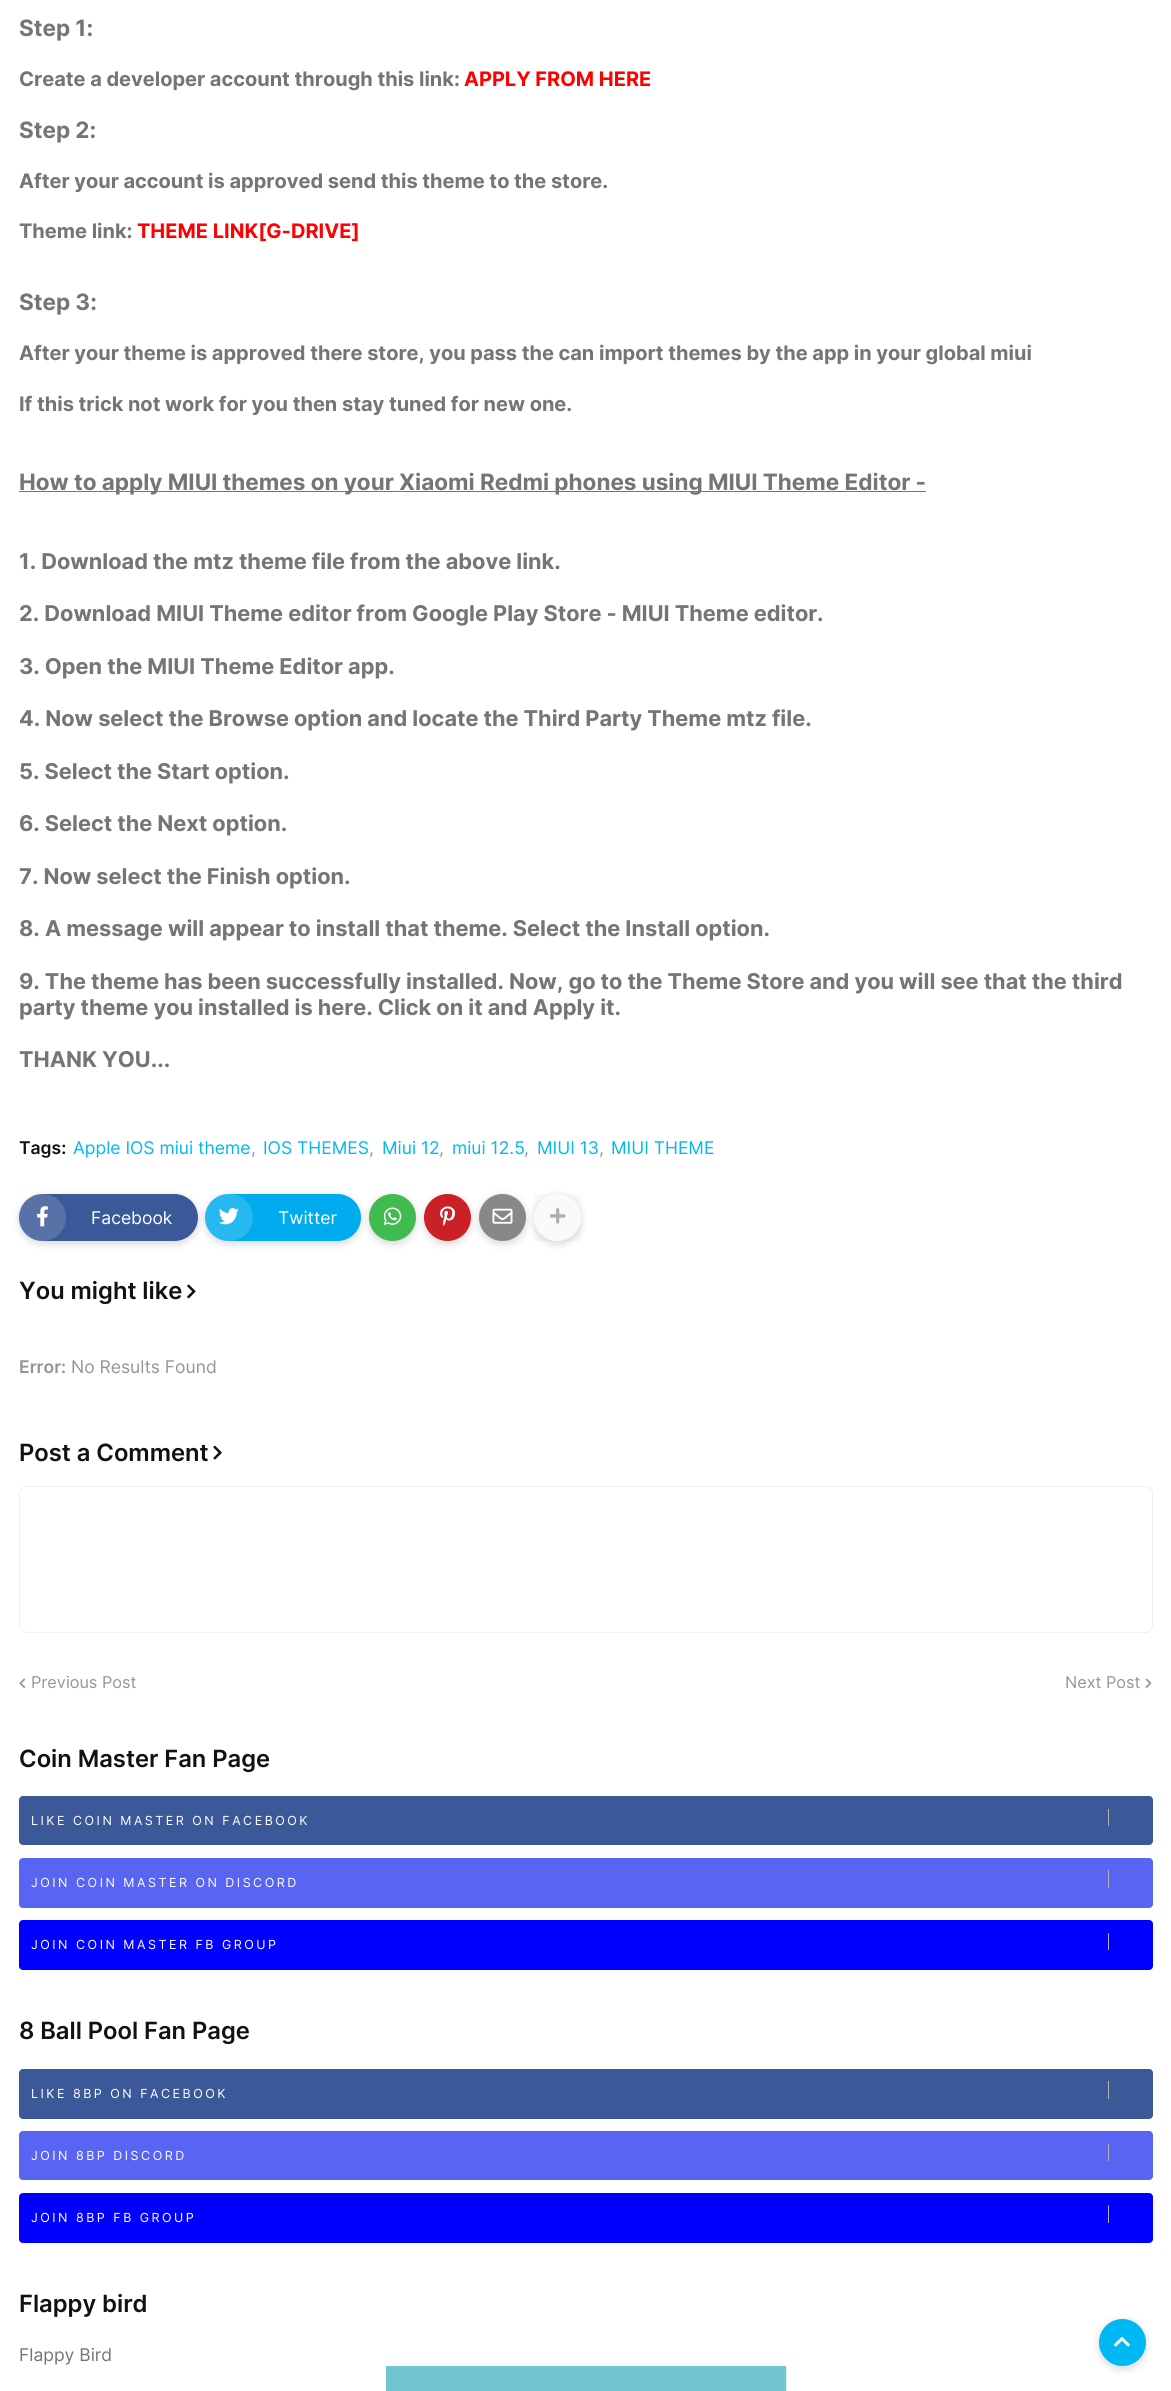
import math
import cairo


def use_color(cr, r, g, b):
  cr.set_source_rgb(r / 255, g / 255, b / 255)

def text(cr, x, y, s, family, size, color, bold=False, italic=False):
  cr.select_font_face(family, cairo.FONT_SLANT_ITALIC if italic else cairo.FONT_SLANT_NORMAL, cairo.FONT_WEIGHT_BOLD if bold else cairo.FONT_WEIGHT_NORMAL)
  cr.set_font_size(size)
  use_color(cr, *color)
  cr.move_to(x, y)
  cr.show_text(s)

def spaced_text(cr, x, y, s, letter, word):
  cr.move_to(x, y)
  for ch in s:
    cr.show_text(ch)
    cr.rel_move_to(letter + word * (ch == ' '), 0)

def box(cr, x, y, w, h, *color):
  use_color(cr, *color)
  cr.rectangle(x, y, w, h)
  cr.fill()

def round_rect(cr, x, y, w, h, r):
  cr.new_sub_path()
  for i, (u, v) in enumerate([(x + w - r, y + h - r), (x + r, y + h - r), (x + r, y + r), (x + w - r, y + r)]):
    cr.arc(u, v, r, i * math.pi / 2, (i + 1) * math.pi / 2)
  cr.close_path()

def shadow(cr, x, y, w, h, r, blur, alpha):
  cr.push_group_with_content(cairo.CONTENT_ALPHA)
  cr.set_operator(cairo.OPERATOR_SOURCE)
  for i in range(15, -16, -2):
    e = blur * i / 6
    if min(w, h) + 2 * e > 0:
      cr.set_source_rgba(0, 0, 0, alpha * math.erfc((i - 1) / 8.5) / 2)
      round_rect(cr, x - e, y - e, w + 2 * e, h + 2 * e, max(0, min(r + e + blur * .6, min(w, h) / 2 + e)))
      cr.fill()
  cr.mask(cr.pop_group())

def picture(cr, path, x, y, w, h):
  cr.save()
  cr.set_source_surface(cairo.ImageSurface.create_from_png(path), x, y)
  cr.rectangle(x, y, w, h)
  cr.fill()
  cr.restore()

def draw(cr):
  use_color(cr, 255, 255, 255)
  cr.paint()
  box(cr, 19, 491, 907, 1, 117, 117, 117)
  use_color(cr, 0, 0, 0)
  shadow(cr, 19, 1196, 179, 48, 24, 4, 0.15)
  use_color(cr, 59, 89, 153)
  round_rect(cr, 19, 1194, 179, 47, 23.5)
  cr.fill()
  cr.set_source_rgba(1, 1, 1, 0.15)
  cr.arc(42.5, 1217.5, 23.5, 0, 2 * math.pi)
  cr.fill()
  picture(cr, "img_01.png", 37, 1206, 11, 21)
  use_color(cr, 0, 0, 0)
  shadow(cr, 205, 1196, 156, 48, 24, 4, 0.15)
  use_color(cr, 0, 172, 238)
  round_rect(cr, 205, 1194, 156, 47, 23.5)
  cr.fill()
  cr.set_source_rgba(1, 1, 1, 0.15)
  round_rect(cr, 205, 1194, 48, 47, 23.5)
  cr.fill()
  picture(cr, "img_02.png", 219, 1208, 20, 17)
  use_color(cr, 0, 0, 0)
  shadow(cr, 369, 1196, 47, 48, 23.5, 4, 0.15)
  use_color(cr, 63, 187, 80)
  cr.arc(392.5, 1217.5, 23.5, 0, 2 * math.pi)
  cr.fill()
  picture(cr, "img_03.png", 383, 1207, 19, 18)
  use_color(cr, 0, 0, 0)
  shadow(cr, 424, 1196, 47, 48, 23.5, 4, 0.15)
  use_color(cr, 202, 33, 39)
  cr.arc(447.5, 1217.5, 23.5, 0, 2 * math.pi)
  cr.fill()
  picture(cr, "img_04.png", 440, 1206, 15, 20)
  use_color(cr, 0, 0, 0)
  shadow(cr, 479, 1196, 47, 48, 23.5, 4, 0.15)
  use_color(cr, 136, 136, 136)
  cr.arc(502.5, 1217.5, 23.5, 0, 2 * math.pi)
  cr.fill()
  picture(cr, "img_05.png", 492, 1208, 21, 16)
  cr.save()
  cr.set_fill_rule(cairo.FILL_RULE_EVEN_ODD)
  cr.new_path()
  cr.move_to(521, 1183)
  cr.line_to(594, 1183)
  cr.line_to(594, 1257)
  cr.line_to(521, 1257)
  cr.close_path()
  cr.move_to(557.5, 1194)
  cr.curve_to(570.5, 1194, 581, 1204.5, 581, 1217.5)
  cr.curve_to(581, 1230.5, 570.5, 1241, 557.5, 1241)
  cr.curve_to(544.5, 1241, 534, 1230.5, 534, 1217.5)
  cr.curve_to(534, 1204.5, 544.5, 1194, 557.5, 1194)
  cr.close_path()
  cr.clip()
  use_color(cr, 0, 0, 0)
  shadow(cr, 534, 1196, 47, 48, 23.5, 4, 0.15)
  cr.restore()
  cr.set_source_rgba(0.608, 0.608, 0.608, 0.05)
  cr.rectangle(534, 1194, 47, 47)
  cr.fill()
  picture(cr, "img_06.png", 550, 1208, 16, 16)
  picture(cr, "img_07.png", 187, 1284, 9, 15)
  picture(cr, "img_08.png", 213, 1445, 9, 15)
  round_rect(cr, 19.5, 1486.5, 1133, 146, 7.5)
  use_color(cr, 240, 240, 240)
  cr.set_line_width(1)
  cr.stroke()
  picture(cr, "img_09.png", 19, 1678, 7, 10)
  picture(cr, "img_10.png", 1145, 1678, 7, 10)
  use_color(cr, 59, 89, 152)
  round_rect(cr, 19, 1796, 1134, 49, 4)
  cr.fill()
  box(cr, 1108, 1809, 1, 17, 177, 177, 177)
  use_color(cr, 88, 101, 242)
  round_rect(cr, 19, 1858, 1134, 50, 4)
  cr.fill()
  box(cr, 1108, 1870, 1, 18, 177, 177, 177)
  use_color(cr, 0, 0, 255)
  round_rect(cr, 19, 1920, 1134, 50, 4)
  cr.fill()
  box(cr, 1108, 1933, 1, 17, 177, 177, 177)
  use_color(cr, 59, 89, 152)
  round_rect(cr, 19, 2069, 1134, 50, 4)
  cr.fill()
  box(cr, 1108, 2081, 1, 18, 177, 177, 177)
  use_color(cr, 88, 101, 242)
  round_rect(cr, 19, 2131, 1134, 49, 4)
  cr.fill()
  box(cr, 1108, 2144, 1, 17, 177, 177, 177)
  use_color(cr, 0, 0, 255)
  round_rect(cr, 19, 2193, 1134, 50, 4)
  cr.fill()
  box(cr, 1108, 2205, 1, 18, 177, 177, 177)
  box(cr, 386, 2366, 400, 25, 112, 197, 206)
  box(cr, 786, 2366, 1, 25, 219, 241, 243)
  use_color(cr, 0, 0, 0)
  shadow(cr, 1099, 2321, 47, 48, 23.5, 4, 0.15)
  use_color(cr, 0, 184, 242)
  cr.arc(1122.5, 2342.5, 23.5, 0, 2 * math.pi)
  cr.fill()
  picture(cr, "img_11.png", 1114, 2336, 16, 11)
  text(cr, 19, 36, "Step 1:", "Inter", 22.5, (117, 117, 117), bold=True)
  text(cr, 19, 86, "Create a developer account through this link:", "Inter", 20, (117, 117, 117), bold=True)
  text(cr, 464, 86, "APPLY FROM HERE", "Inter", 20, (255, 0, 0), bold=True)
  text(cr, 19, 138, "Step 2:", "Inter", 22.5, (117, 117, 117), bold=True)
  text(cr, 19, 188, "After your account is approved send this theme to the store.", "Inter", 20, (117, 117, 117), bold=True)
  text(cr, 19, 238, "Theme link:", "Inter", 20, (117, 117, 117), bold=True)
  text(cr, 137, 238, "THEME LINK[G-DRIVE]", "Inter", 20, (255, 0, 0), bold=True)
  text(cr, 19, 310, "Step 3:", "Inter", 22.5, (117, 117, 117), bold=True)
  text(cr, 19, 360, "After your theme is approved there store, you pass the can import themes by the app in your global miui", "Inter", 20, (117, 117, 117), bold=True)
  text(cr, 19, 411, "If this trick not work for you then stay tuned for new one.", "Inter", 20, (117, 117, 117), bold=True)
  text(cr, 19, 490, "How to apply MIUI themes on your Xiaomi Redmi phones using MIUI Theme Editor -", "Inter", 22.5, (117, 117, 117), bold=True)
  text(cr, 19, 569, "1. Download the mtz theme file from the above link.", "Inter", 21.75, (117, 117, 117), bold=True)
  text(cr, 19, 621, "2. Download MIUI Theme editor from Google Play Store - MIUI Theme editor.", "Inter", 21.75, (117, 117, 117), bold=True)
  text(cr, 19, 674, "3. Open the MIUI Theme Editor app.", "Inter", 21.75, (117, 117, 117), bold=True)
  text(cr, 19, 726, "4. Now select the Browse option and locate the Third Party Theme mtz file.", "Inter", 21.75, (117, 117, 117), bold=True)
  text(cr, 19, 779, "5. Select the Start option.", "Inter", 21.75, (117, 117, 117), bold=True)
  text(cr, 19, 831, "6. Select the Next option.", "Inter", 21.75, (117, 117, 117), bold=True)
  text(cr, 19, 884, "7. Now select the Finish option.", "Inter", 21.75, (117, 117, 117), bold=True)
  text(cr, 19, 936, "8. A message will appear to install that theme. Select the Install option.", "Inter", 21.75, (117, 117, 117), bold=True)
  text(cr, 19, 989, "9. The theme has been successfully installed. Now, go to the Theme Store and you will see that the third", "Inter", 21.75, (117, 117, 117), bold=True)
  text(cr, 19, 1015, "party theme you installed is here. Click on it and Apply it.", "Inter", 21.75, (117, 117, 117), bold=True)
  text(cr, 19, 1067, "THANK YOU...", "Inter", 21.75, (117, 117, 117), bold=True)
  text(cr, 19, 1154, "Tags:", "Inter SemiBold", 17.5, (17, 17, 17))
  text(cr, 73, 1154, "Apple IOS miui theme", "Inter", 17.5, (0, 184, 242))
  text(cr, 251, 1154, ",", "Inter", 17.5, (149, 149, 149))
  text(cr, 263, 1154, "IOS THEMES", "Inter", 17.5, (0, 184, 242))
  text(cr, 369, 1154, ",", "Inter", 17.5, (149, 149, 149))
  text(cr, 382, 1154, "Miui 12", "Inter", 17.5, (0, 184, 242))
  text(cr, 439, 1154, ",", "Inter", 17.5, (149, 149, 149))
  text(cr, 452, 1154, "miui 12.5", "Inter", 17.5, (0, 184, 242))
  text(cr, 524, 1154, ",", "Inter", 17.5, (149, 149, 149))
  text(cr, 537, 1154, "MIUI 13", "Inter", 17.5, (0, 184, 242))
  text(cr, 599, 1154, ",", "Inter", 17.5, (149, 149, 149))
  text(cr, 611, 1154, "MIUI THEME", "Inter", 17.5, (0, 184, 242))
  text(cr, 91, 1224, "Facebook", "Inter", 17.5, (255, 255, 255))
  text(cr, 278, 1224, "Twitter", "Inter", 17.5, (255, 255, 255))
  text(cr, 19, 1299, "You might like", "Inter SemiBold", 23.75, (17, 17, 17))
  text(cr, 19, 1373, "Error:", "Inter SemiBold", 17.5, (149, 149, 149))
  text(cr, 71, 1373, "No Results Found", "Inter", 17.5, (149, 149, 149))
  text(cr, 19, 1461, "Post a Comment", "Inter SemiBold", 23.75, (17, 17, 17))
  text(cr, 31, 1688, "Previous Post", "Inter", 16.25, (149, 149, 149))
  text(cr, 1065, 1688, "Next Post", "Inter", 16.25, (149, 149, 149))
  text(cr, 19, 1767, "Coin Master Fan Page", "Inter SemiBold", 23.75, (17, 17, 17))
  cr.select_font_face("Inter")
  cr.set_font_size(12.5)
  use_color(cr, 255, 255, 255)
  spaced_text(cr, 31, 1825, "LIKE COIN MASTER ON FACEBOOK", 2.5, 0)
  spaced_text(cr, 31, 1887, "JOIN COIN MASTER ON DISCORD", 2.5, 0)
  spaced_text(cr, 31, 1949, "JOIN COIN MASTER FB GROUP", 2.5, 0)
  text(cr, 19, 2039, "8 Ball Pool Fan Page", "Inter SemiBold", 23.75, (17, 17, 17))
  cr.select_font_face("Inter")
  cr.set_font_size(12.5)
  use_color(cr, 255, 255, 255)
  spaced_text(cr, 31, 2098, "LIKE 8BP ON FACEBOOK", 2.5, 0)
  spaced_text(cr, 31, 2160, "JOIN 8BP DISCORD", 2.5, 0)
  spaced_text(cr, 31, 2222, "JOIN 8BP FB GROUP", 2.5, 0)
  text(cr, 19, 2312, "Flappy bird", "Inter SemiBold", 23.75, (17, 17, 17))
  text(cr, 19, 2361, "Flappy Bird", "Inter", 17.5, (117, 117, 117))


surface = cairo.ImageSurface(cairo.FORMAT_RGB24, 1171, 2391)
cr = cairo.Context(surface)
options = cairo.FontOptions()
options.set_hint_metrics(cairo.HINT_METRICS_OFF)
options.set_hint_style(cairo.HINT_STYLE_NONE)
cr.set_font_options(options)
cr.set_miter_limit(4)
draw(cr)
surface.write_to_png("out.png")
